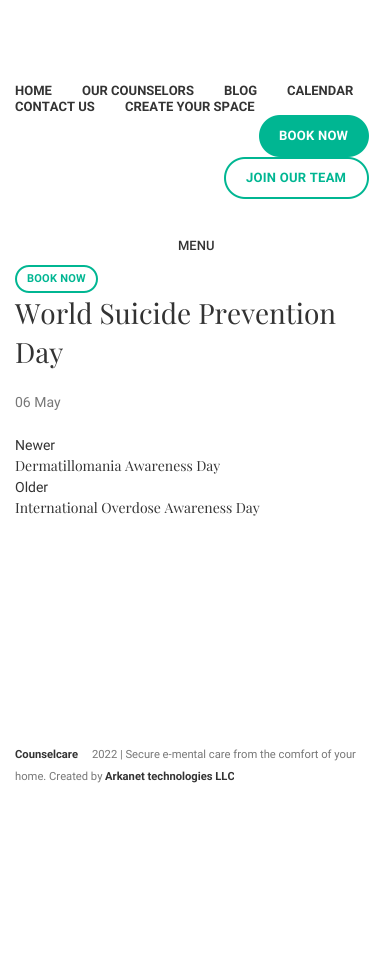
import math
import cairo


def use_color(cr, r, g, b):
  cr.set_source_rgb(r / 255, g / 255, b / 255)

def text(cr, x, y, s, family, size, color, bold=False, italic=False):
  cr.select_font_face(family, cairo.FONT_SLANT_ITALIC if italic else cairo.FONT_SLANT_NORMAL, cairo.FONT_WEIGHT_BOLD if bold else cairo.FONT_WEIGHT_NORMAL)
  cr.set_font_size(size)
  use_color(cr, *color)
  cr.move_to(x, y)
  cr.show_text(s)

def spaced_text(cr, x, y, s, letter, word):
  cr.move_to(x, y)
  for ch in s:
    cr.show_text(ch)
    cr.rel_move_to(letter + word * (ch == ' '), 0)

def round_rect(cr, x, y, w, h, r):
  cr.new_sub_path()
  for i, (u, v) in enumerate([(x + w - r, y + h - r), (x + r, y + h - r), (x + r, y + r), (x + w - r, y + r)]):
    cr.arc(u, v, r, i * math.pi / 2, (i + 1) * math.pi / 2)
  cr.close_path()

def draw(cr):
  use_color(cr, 255, 255, 255)
  cr.paint()
  use_color(cr, 0, 182, 146)
  round_rect(cr, 259, 115, 110, 42, 21)
  cr.fill()
  round_rect(cr, 225, 158, 143, 40, 20)
  cr.stroke()
  round_rect(cr, 16, 266, 81, 26, 13)
  cr.stroke()
  text(cr, 15, 95, "HOME", "Roboto", 13, (51, 51, 51), bold=True)
  text(cr, 82, 95, "OUR COUNSELORS", "Roboto", 13, (51, 51, 51), bold=True)
  text(cr, 224, 95, "BLOG", "Roboto", 13, (51, 51, 51), bold=True)
  text(cr, 287, 95, "CALENDAR", "Roboto", 13, (51, 51, 51), bold=True)
  text(cr, 15, 111, "CONTACT US", "Roboto", 13, (51, 51, 51), bold=True)
  text(cr, 125, 111, "CREATE YOUR SPACE", "Roboto", 13, (51, 51, 51), bold=True)
  use_color(cr, 255, 255, 255)
  spaced_text(cr, 279, 140, "BOOK NOW", 0.25, 0)
  use_color(cr, 0, 182, 146)
  spaced_text(cr, 246, 182, "JOIN OUR TEAM", 0.25, 0)
  text(cr, 178, 250, "MENU", "Roboto Medium", 13, (51, 51, 51))
  cr.select_font_face("Roboto", cairo.FONT_SLANT_NORMAL, cairo.FONT_WEIGHT_BOLD)
  cr.set_font_size(11)
  use_color(cr, 0, 182, 146)
  spaced_text(cr, 27, 282, "BOOK NOW", 0.25, 0)
  text(cr, 15, 324, "World Suicide Prevention", "Playfair Display", 28, (51, 51, 51))
  text(cr, 15, 363, "Day", "Playfair Display", 28, (51, 51, 51))
  text(cr, 15, 407, "06 May", "Roboto", 14, (119, 119, 119))
  text(cr, 15, 450, "Newer", "Roboto", 14, (51, 51, 51))
  text(cr, 15, 471, "Dermatillomania Awareness Day", "Playfair Display", 14, (51, 51, 51))
  text(cr, 15, 492, "Older", "Roboto", 14, (51, 51, 51))
  text(cr, 15, 513, "International Overdose Awareness Day", "Playfair Display", 14, (51, 51, 51))
  text(cr, 15, 758, "Counselcare", "Roboto", 11.2, (51, 51, 51), bold=True)
  text(cr, 92, 758, "2022 | Secure e-mental care from the comfort of your", "Roboto", 11.2, (119, 119, 119))
  text(cr, 15, 780, "home. Created by", "Roboto", 11.2, (119, 119, 119))
  text(cr, 105, 780, "Arkanet technologies LLC", "Roboto", 11.2, (51, 51, 51), bold=True)


surface = cairo.ImageSurface(cairo.FORMAT_RGB24, 384, 977)
cr = cairo.Context(surface)
options = cairo.FontOptions()
options.set_hint_metrics(cairo.HINT_METRICS_OFF)
options.set_hint_style(cairo.HINT_STYLE_NONE)
cr.set_font_options(options)
cr.set_miter_limit(4)
draw(cr)
surface.write_to_png("out.png")
